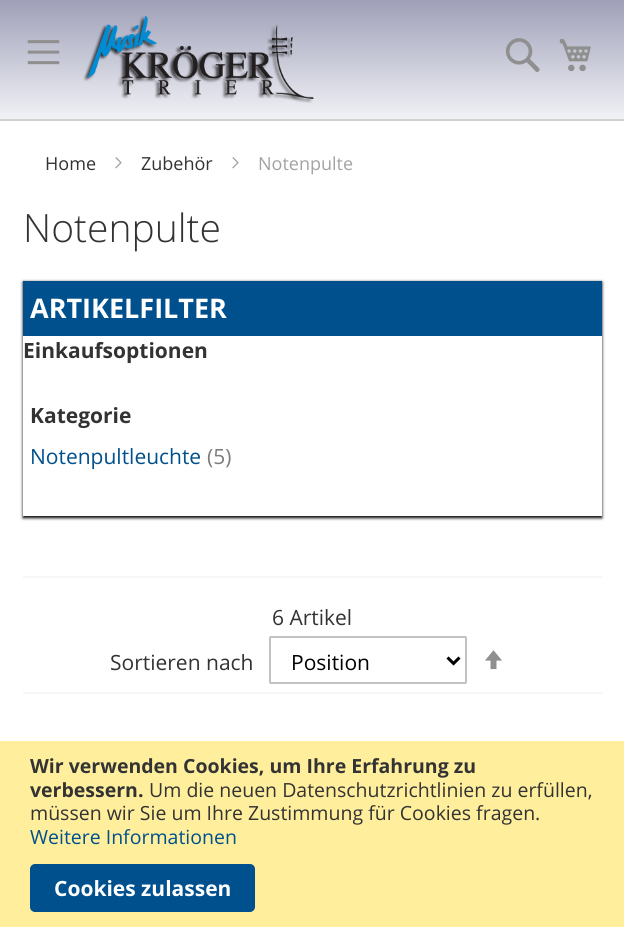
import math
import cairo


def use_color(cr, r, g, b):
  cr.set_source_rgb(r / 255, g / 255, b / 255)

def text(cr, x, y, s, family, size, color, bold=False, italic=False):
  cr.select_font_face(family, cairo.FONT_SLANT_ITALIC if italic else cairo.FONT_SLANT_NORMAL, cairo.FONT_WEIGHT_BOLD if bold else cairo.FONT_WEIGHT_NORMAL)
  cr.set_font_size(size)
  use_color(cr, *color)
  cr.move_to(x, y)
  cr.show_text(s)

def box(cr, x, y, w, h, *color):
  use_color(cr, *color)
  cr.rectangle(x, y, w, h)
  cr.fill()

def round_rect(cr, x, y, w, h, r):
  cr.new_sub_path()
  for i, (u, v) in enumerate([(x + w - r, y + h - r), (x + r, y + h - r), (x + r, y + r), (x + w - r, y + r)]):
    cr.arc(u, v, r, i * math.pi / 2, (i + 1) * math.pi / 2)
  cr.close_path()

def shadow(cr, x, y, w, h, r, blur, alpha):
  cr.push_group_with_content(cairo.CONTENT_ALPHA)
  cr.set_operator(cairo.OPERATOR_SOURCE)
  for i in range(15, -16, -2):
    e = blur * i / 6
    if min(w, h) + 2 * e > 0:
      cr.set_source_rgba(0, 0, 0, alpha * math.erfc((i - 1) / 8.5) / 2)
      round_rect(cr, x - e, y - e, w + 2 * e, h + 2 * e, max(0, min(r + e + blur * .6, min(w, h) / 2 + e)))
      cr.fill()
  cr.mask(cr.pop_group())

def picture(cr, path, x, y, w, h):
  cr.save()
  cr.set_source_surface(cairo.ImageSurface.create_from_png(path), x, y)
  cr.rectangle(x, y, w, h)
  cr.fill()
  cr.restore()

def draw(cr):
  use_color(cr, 255, 255, 255)
  cr.paint()
  gradient = cairo.LinearGradient(312, 0, 312, 119)
  gradient.add_color_stop_rgba(0, 0.624, 0.627, 0.722, 1)
  gradient.add_color_stop_rgba(1, 0.945, 0.949, 0.965, 1)
  cr.set_source(gradient)
  cr.rectangle(0, 0, 624, 119)
  cr.fill()
  box(cr, 0, 119, 624, 2, 209, 209, 209)
  picture(cr, "img_01.png", 27, 40, 33, 25)
  picture(cr, "img_02.png", 83, 15, 231, 88)
  picture(cr, "img_03.png", 505, 38, 35, 34)
  picture(cr, "img_04.png", 559, 38, 32, 34)
  picture(cr, "img_05.png", 115, 157, 7, 12)
  picture(cr, "img_05.png", 232, 157, 7, 12)
  use_color(cr, 0, 0, 0)
  shadow(cr, 23, 282, 579, 236, 0, 1.5, 1)
  box(cr, 23, 336, 579, 180, 255, 255, 255)
  box(cr, 23, 281, 579, 55, 0, 80, 142)
  box(cr, 23, 576, 579, 2, 246, 246, 246)
  box(cr, 23, 692, 579, 2, 246, 246, 246)
  round_rect(cr, 270, 637, 196, 46, 0.5)
  use_color(cr, 194, 194, 194)
  cr.stroke()
  cr.new_path()
  cr.move_to(447.5, 657.5)
  cr.line_to(453.5, 663.5)
  cr.line_to(459.5, 657.5)
  use_color(cr, 0, 0, 0)
  cr.set_line_width(3)
  cr.stroke()
  picture(cr, "img_06.png", 485, 650, 17, 20)
  box(cr, 0, 741, 624, 186, 255, 238, 156)
  use_color(cr, 0, 80, 142)
  round_rect(cr, 31, 865, 223, 46, 4)
  cr.fill_preserve()
  cr.set_line_width(2)
  cr.stroke()
  text(cr, 45, 170, "Home", "Open Sans", 18, (51, 51, 51))
  text(cr, 141, 170, "Zubehör", "Open Sans", 18, (51, 51, 51))
  text(cr, 258, 170, "Notenpulte", "Open Sans", 18, (163, 163, 163))
  text(cr, 23, 242, "Notenpulte", "Open Sans Light", 39, (51, 51, 51))
  text(cr, 30, 318, "ARTIKELFILTER", "Open Sans", 27, (255, 255, 255), bold=True)
  text(cr, 23, 358, "Einkaufsoptionen", "Open Sans", 21, (51, 51, 51), bold=True)
  text(cr, 30, 423, "Kategorie", "Open Sans", 21, (51, 51, 51), bold=True)
  text(cr, 30, 464, "Notenpultleuchte", "Open Sans", 21, (0, 80, 142))
  text(cr, 207, 464, "(5)", "Open Sans", 21, (125, 125, 125))
  text(cr, 272, 625, "6 Artikel", "Open Sans", 21, (51, 51, 51))
  text(cr, 110, 670, "Sortieren nach", "Open Sans", 21, (51, 51, 51))
  text(cr, 291, 670, "Position", "Open Sans", 21, (0, 0, 0))
  text(cr, 30, 773, "Wir verwenden Cookies, um Ihre Erfahrung zu", "Open Sans", 19.5, (51, 51, 51), bold=True)
  text(cr, 30, 797, "verbessern.", "Open Sans", 19.5, (51, 51, 51), bold=True)
  text(cr, 149, 797, "Um die neuen Datenschutzrichtlinien zu erfüllen,", "Open Sans", 19.5, (51, 51, 51))
  text(cr, 30, 820, "müssen wir Sie um Ihre Zustimmung für Cookies fragen.", "Open Sans", 19.5, (51, 51, 51))
  text(cr, 30, 844, "Weitere Informationen", "Open Sans", 19.5, (0, 80, 142))
  text(cr, 54, 896, "Cookies zulassen", "Open Sans", 21, (255, 255, 255), bold=True)


surface = cairo.ImageSurface(cairo.FORMAT_RGB24, 624, 927)
cr = cairo.Context(surface)
options = cairo.FontOptions()
options.set_hint_metrics(cairo.HINT_METRICS_OFF)
options.set_hint_style(cairo.HINT_STYLE_NONE)
cr.set_font_options(options)
cr.set_miter_limit(4)
draw(cr)
surface.write_to_png("out.png")
